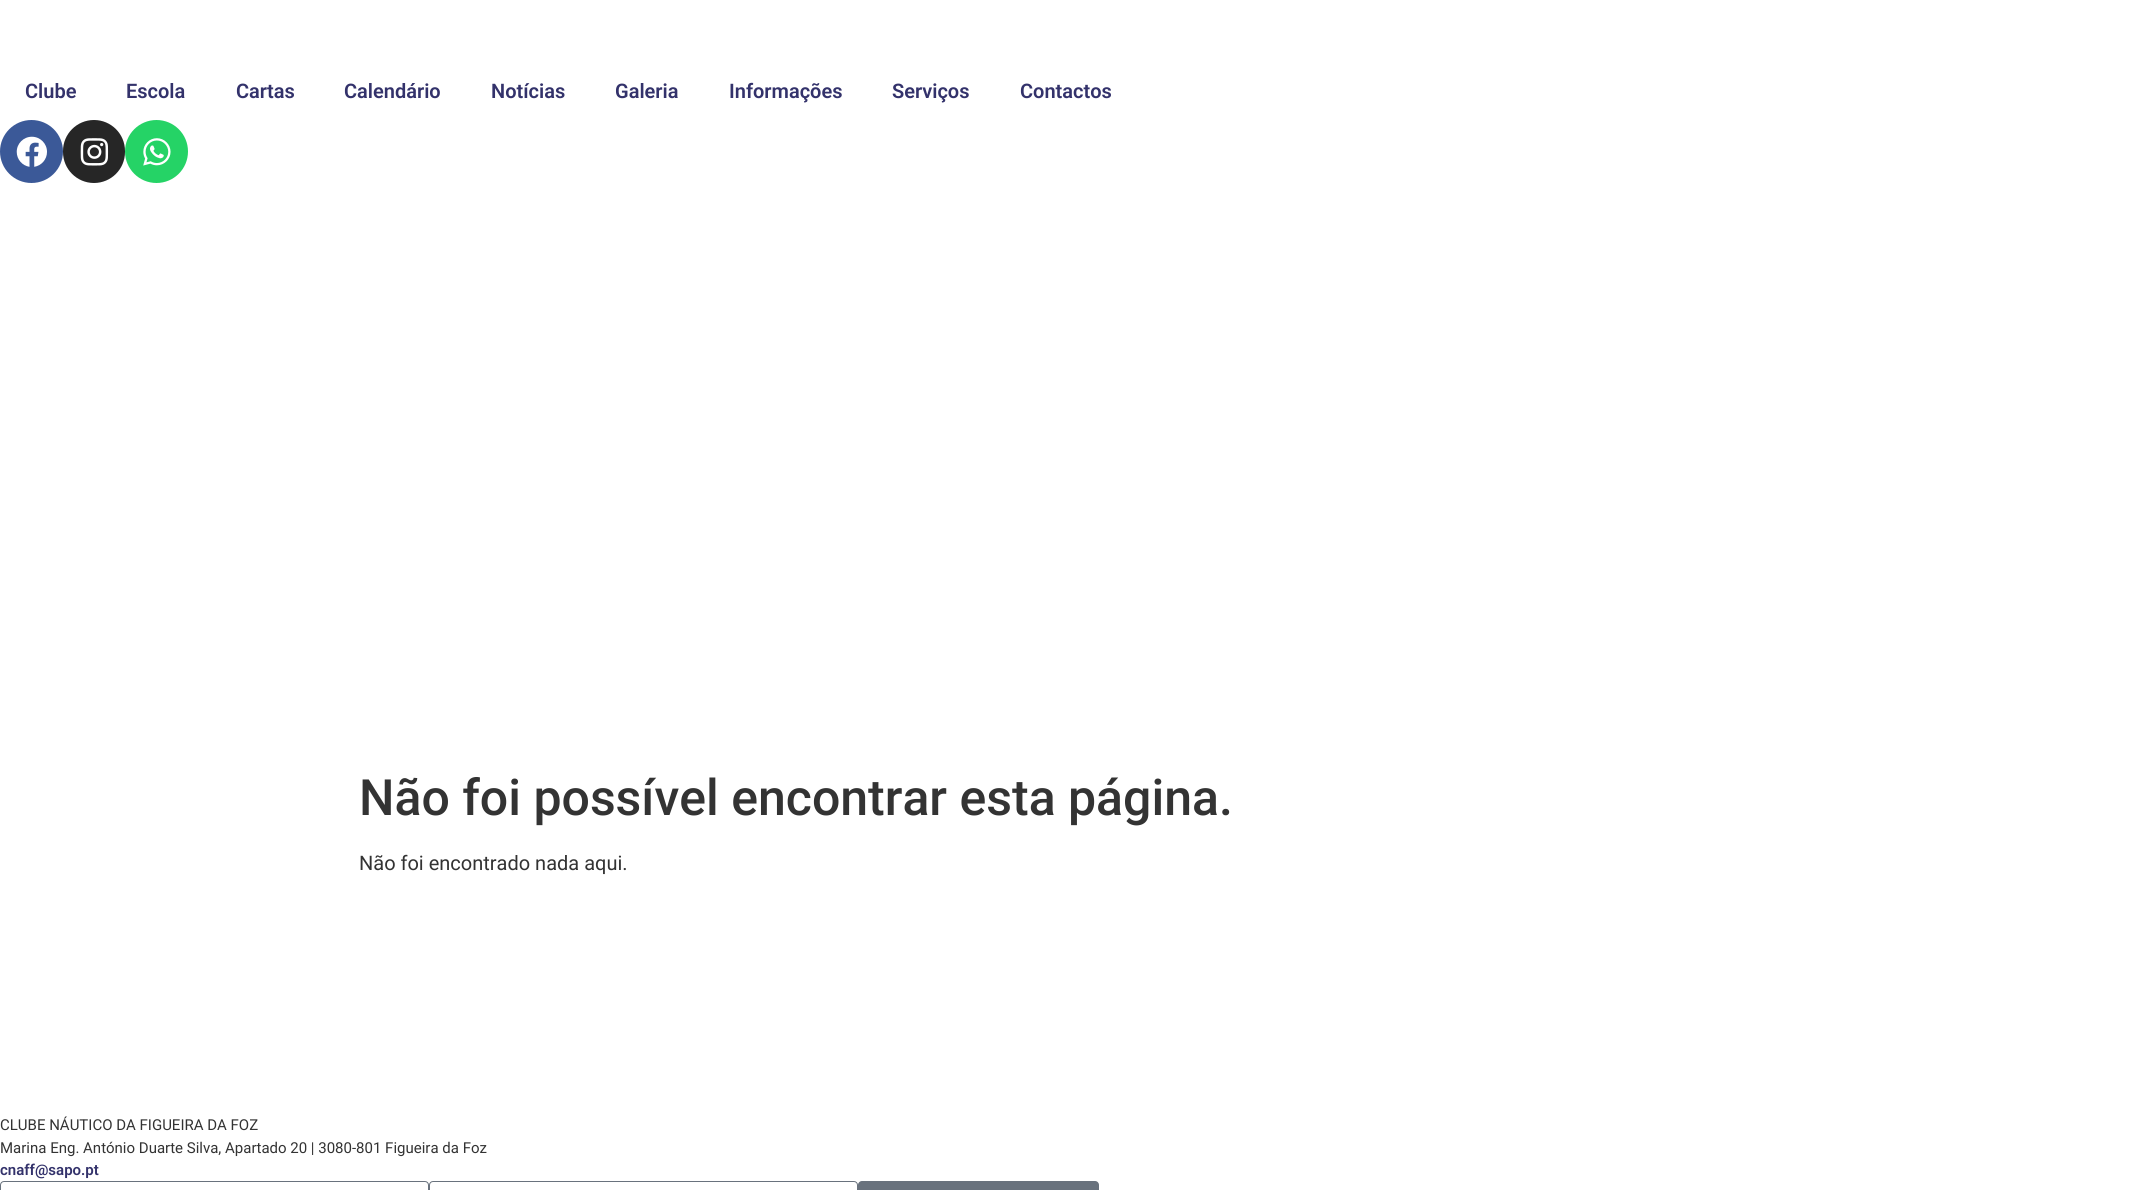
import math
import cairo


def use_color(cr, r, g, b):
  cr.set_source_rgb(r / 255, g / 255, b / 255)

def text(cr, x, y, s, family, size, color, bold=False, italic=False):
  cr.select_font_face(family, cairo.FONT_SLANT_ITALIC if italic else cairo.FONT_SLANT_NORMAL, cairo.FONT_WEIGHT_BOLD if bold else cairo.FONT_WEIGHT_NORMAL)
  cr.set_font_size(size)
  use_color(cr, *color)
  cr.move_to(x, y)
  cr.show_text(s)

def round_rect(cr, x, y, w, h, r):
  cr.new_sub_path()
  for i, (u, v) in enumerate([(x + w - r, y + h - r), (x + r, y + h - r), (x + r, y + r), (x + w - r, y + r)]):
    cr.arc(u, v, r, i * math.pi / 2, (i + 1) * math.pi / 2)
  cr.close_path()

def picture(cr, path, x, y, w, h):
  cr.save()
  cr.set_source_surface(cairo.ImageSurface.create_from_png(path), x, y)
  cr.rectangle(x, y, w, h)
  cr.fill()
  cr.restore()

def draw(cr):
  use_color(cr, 255, 255, 255)
  cr.paint()
  use_color(cr, 59, 89, 152)
  cr.arc(31.5, 151.5, 31.5, 0, 2 * math.pi)
  cr.fill()
  picture(cr, "img_01.png", 16, 136, 31, 31)
  use_color(cr, 38, 38, 38)
  round_rect(cr, 63, 120, 62, 63, 31)
  cr.fill()
  picture(cr, "img_02.png", 80, 138, 29, 28)
  use_color(cr, 37, 211, 102)
  cr.arc(156.5, 151.5, 31.5, 0, 2 * math.pi)
  cr.fill()
  picture(cr, "img_03.png", 143, 138, 28, 28)
  round_rect(cr, 0.5, 1181.5, 428, 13, 3.5)
  use_color(cr, 105, 114, 125)
  cr.set_line_width(1)
  cr.stroke()
  round_rect(cr, 429.5, 1181.5, 428, 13, 3.5)
  cr.stroke()
  round_rect(cr, 858, 1181, 241, 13, 4)
  cr.fill()
  text(cr, 25, 98, "Clube", "Roboto SemiBold", 20, (51, 50, 107))
  text(cr, 126, 98, "Escola", "Roboto SemiBold", 20, (51, 50, 107))
  text(cr, 236, 98, "Cartas", "Roboto SemiBold", 20, (51, 50, 107))
  text(cr, 344, 98, "Calendário", "Roboto SemiBold", 20, (51, 50, 107))
  text(cr, 491, 98, "Notícias", "Roboto SemiBold", 20, (51, 50, 107))
  text(cr, 615, 98, "Galeria", "Roboto SemiBold", 20, (51, 50, 107))
  text(cr, 729, 98, "Informações", "Roboto SemiBold", 20, (51, 50, 107))
  text(cr, 892, 98, "Serviços", "Roboto SemiBold", 20, (51, 50, 107))
  text(cr, 1020, 98, "Contactos", "Roboto SemiBold", 20, (51, 50, 107))
  text(cr, 359, 815, "Não foi possível encontrar esta página.", "Roboto Medium", 50, (51, 51, 51))
  text(cr, 359, 870, "Não foi encontrado nada aqui.", "Roboto", 20, (51, 51, 51))
  text(cr, 0, 1130, "CLUBE NÁUTICO DA FIGUEIRA DA FOZ", "Roboto", 15, (51, 51, 51))
  text(cr, 0, 1153, "Marina Eng. António Duarte Silva, Apartado 20 | 3080-801 Figueira da Foz", "Roboto", 15, (51, 51, 51))
  text(cr, 0, 1175, "cnaff@sapo.pt", "Roboto SemiBold", 15, (51, 50, 107))


surface = cairo.ImageSurface(cairo.FORMAT_RGB24, 2142, 1190)
cr = cairo.Context(surface)
options = cairo.FontOptions()
options.set_hint_metrics(cairo.HINT_METRICS_OFF)
options.set_hint_style(cairo.HINT_STYLE_NONE)
cr.set_font_options(options)
cr.set_miter_limit(4)
draw(cr)
surface.write_to_png("out.png")
